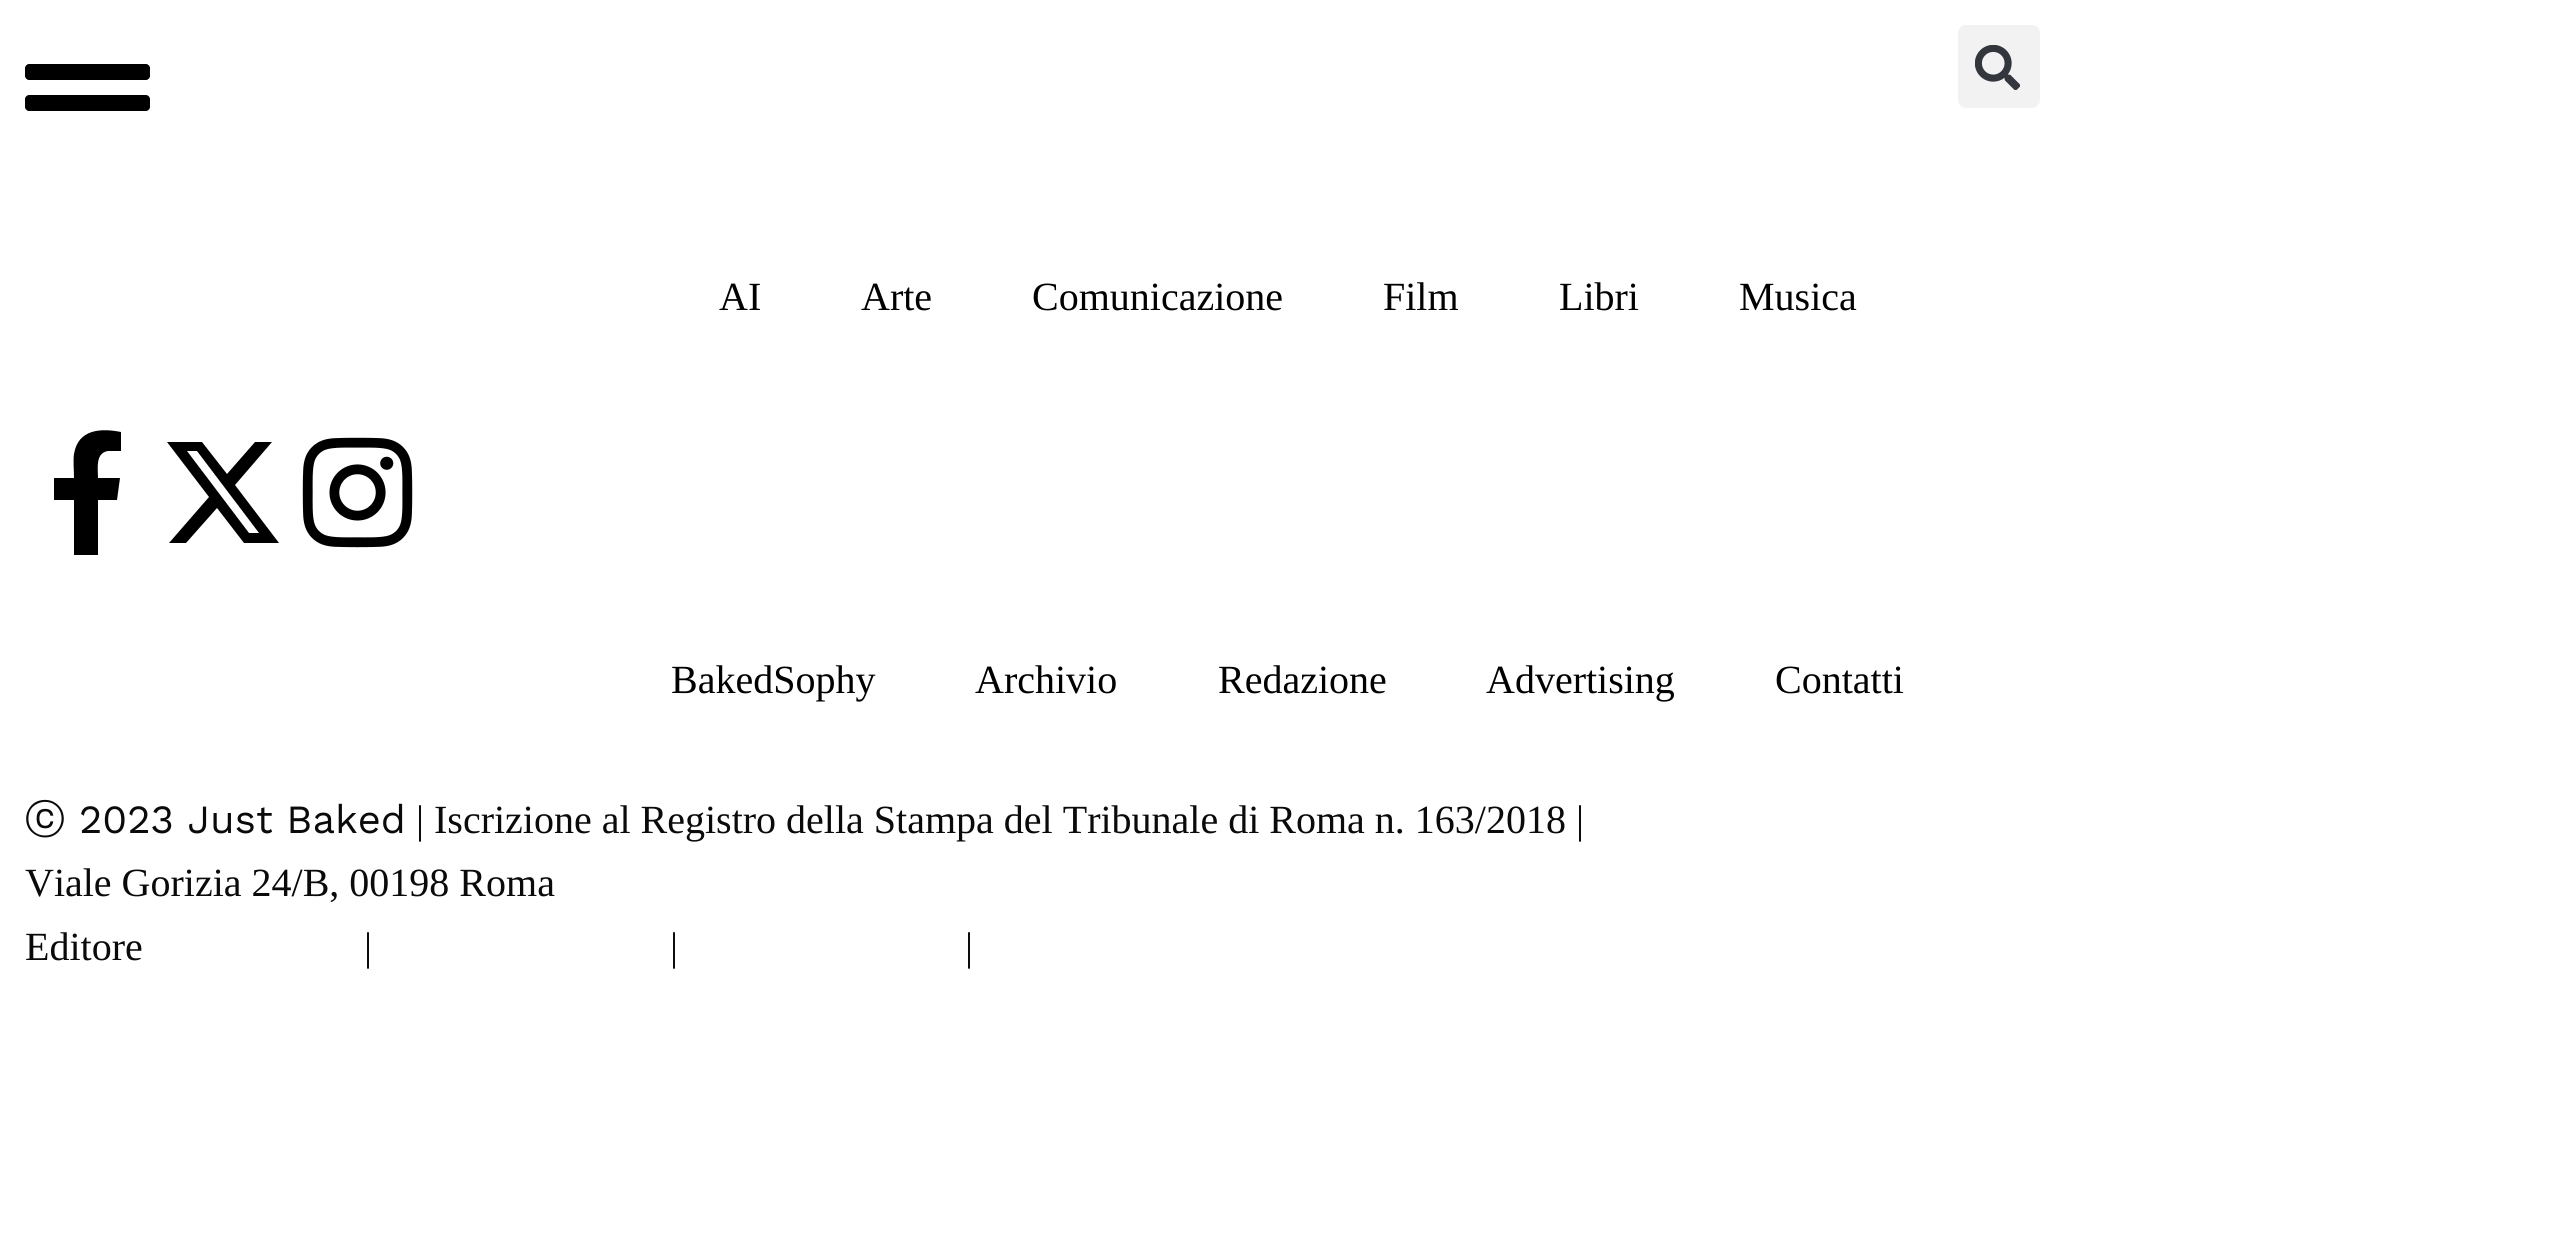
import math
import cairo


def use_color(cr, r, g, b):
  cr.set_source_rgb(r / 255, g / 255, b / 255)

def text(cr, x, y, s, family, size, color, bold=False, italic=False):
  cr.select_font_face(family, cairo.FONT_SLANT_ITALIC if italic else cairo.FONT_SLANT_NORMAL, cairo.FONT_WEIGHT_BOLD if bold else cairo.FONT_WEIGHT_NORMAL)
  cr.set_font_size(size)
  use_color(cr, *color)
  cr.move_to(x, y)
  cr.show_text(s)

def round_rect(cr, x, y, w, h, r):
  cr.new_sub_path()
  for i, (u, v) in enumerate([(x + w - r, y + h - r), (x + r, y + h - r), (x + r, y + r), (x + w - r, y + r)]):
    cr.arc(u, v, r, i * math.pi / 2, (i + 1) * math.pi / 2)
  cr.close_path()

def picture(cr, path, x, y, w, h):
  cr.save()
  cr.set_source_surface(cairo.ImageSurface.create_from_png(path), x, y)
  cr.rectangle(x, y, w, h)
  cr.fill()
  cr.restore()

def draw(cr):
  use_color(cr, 255, 255, 255)
  cr.paint()
  use_color(cr, 0, 0, 0)
  cr.new_path()
  cr.move_to(146, 95)
  cr.line_to(29, 95)
  cr.curve_to(27, 95, 25, 97, 25, 99)
  cr.line_to(25, 107)
  cr.curve_to(25, 109, 27, 111, 29, 111)
  cr.line_to(146, 111)
  cr.curve_to(148, 111, 150, 109, 150, 107)
  cr.line_to(150, 99)
  cr.curve_to(150, 97, 148, 95, 146, 95)
  cr.close_path()
  cr.move_to(146, 64)
  cr.line_to(29, 64)
  cr.curve_to(27, 64, 25, 66, 25, 68)
  cr.line_to(25, 76)
  cr.curve_to(25, 78, 27, 80, 29, 80)
  cr.line_to(146, 80)
  cr.curve_to(148, 80, 150, 78, 150, 76)
  cr.line_to(150, 68)
  cr.curve_to(150, 66, 148, 64, 146, 64)
  cr.close_path()
  cr.fill()
  use_color(cr, 242, 242, 242)
  round_rect(cr, 1958, 25, 82, 83, 8)
  cr.fill()
  picture(cr, "img_01.png", 1975, 45, 45, 45)
  use_color(cr, 0, 0, 0)
  cr.new_path()
  cr.move_to(117, 500)
  cr.line_to(120, 478)
  cr.line_to(98, 478)
  cr.curve_to(98, 469, 95, 453, 108, 451)
  cr.line_to(121, 451)
  cr.line_to(121, 432)
  cr.curve_to(101, 428, 78, 429, 74, 454)
  cr.curve_to(73, 461, 74, 470, 74, 478)
  cr.line_to(54, 478)
  cr.line_to(54, 500)
  cr.line_to(74, 500)
  cr.line_to(74, 555)
  cr.line_to(98, 555)
  cr.line_to(98, 500)
  cr.close_path()
  cr.fill()
  cr.new_path()
  cr.move_to(255, 442)
  cr.line_to(272, 442)
  cr.line_to(235, 485)
  cr.line_to(279, 543)
  cr.line_to(244, 543)
  cr.line_to(217, 508)
  cr.line_to(186, 543)
  cr.line_to(169, 543)
  cr.line_to(209, 497)
  cr.line_to(167, 442)
  cr.line_to(202, 442)
  cr.line_to(227, 474)
  cr.close_path()
  cr.move_to(249, 533)
  cr.line_to(259, 533)
  cr.line_to(197, 451)
  cr.line_to(187, 451)
  cr.close_path()
  cr.fill()
  picture(cr, "img_02.png", 302, 437, 111, 111)
  text(cr, 719, 310, "AI", "Liberation Serif", 40, (0, 0, 0))
  text(cr, 861, 310, "Arte", "Liberation Serif", 40, (0, 0, 0))
  text(cr, 1032, 310, "Comunicazione", "Liberation Serif", 40, (0, 0, 0))
  text(cr, 1383, 310, "Film", "Liberation Serif", 40, (0, 0, 0))
  text(cr, 1559, 310, "Libri", "Liberation Serif", 40, (0, 0, 0))
  text(cr, 1739, 310, "Musica", "Liberation Serif", 40, (0, 0, 0))
  text(cr, 671, 693, "BakedSophy", "Liberation Serif", 40, (0, 0, 0))
  text(cr, 975, 693, "Archivio", "Liberation Serif", 40, (0, 0, 0))
  text(cr, 1218, 693, "Redazione", "Liberation Serif", 40, (0, 0, 0))
  text(cr, 1486, 693, "Advertising", "Liberation Serif", 40, (0, 0, 0))
  text(cr, 1775, 693, "Contatti", "Liberation Serif", 40, (0, 0, 0))
  text(cr, 25, 833, "ⓒ", "WenQuanYi Zen Hei Medium", 40, (10, 10, 10))
  text(cr, 79, 833, "2023 Just Baked", "Work Sans", 40, (10, 10, 10))
  text(cr, 416, 833, "| Iscrizione al Registro della Stampa del Tribunale di Roma n. 163/2018 |", "Liberation Serif", 40, (10, 10, 10))
  text(cr, 25, 896, "Viale Gorizia 24/B, 00198 Roma", "Liberation Serif", 40, (10, 10, 10))
  text(cr, 25, 960, "Editore", "Liberation Serif", 40, (10, 10, 10))
  text(cr, 364, 960, "|", "Liberation Serif", 40, (10, 10, 10))
  text(cr, 670, 960, "|", "Liberation Serif", 40, (10, 10, 10))
  text(cr, 965, 960, "|", "Liberation Serif", 40, (10, 10, 10))


surface = cairo.ImageSurface(cairo.FORMAT_RGB24, 2575, 1238)
cr = cairo.Context(surface)
options = cairo.FontOptions()
options.set_hint_metrics(cairo.HINT_METRICS_OFF)
options.set_hint_style(cairo.HINT_STYLE_NONE)
cr.set_font_options(options)
cr.set_miter_limit(4)
draw(cr)
surface.write_to_png("out.png")
